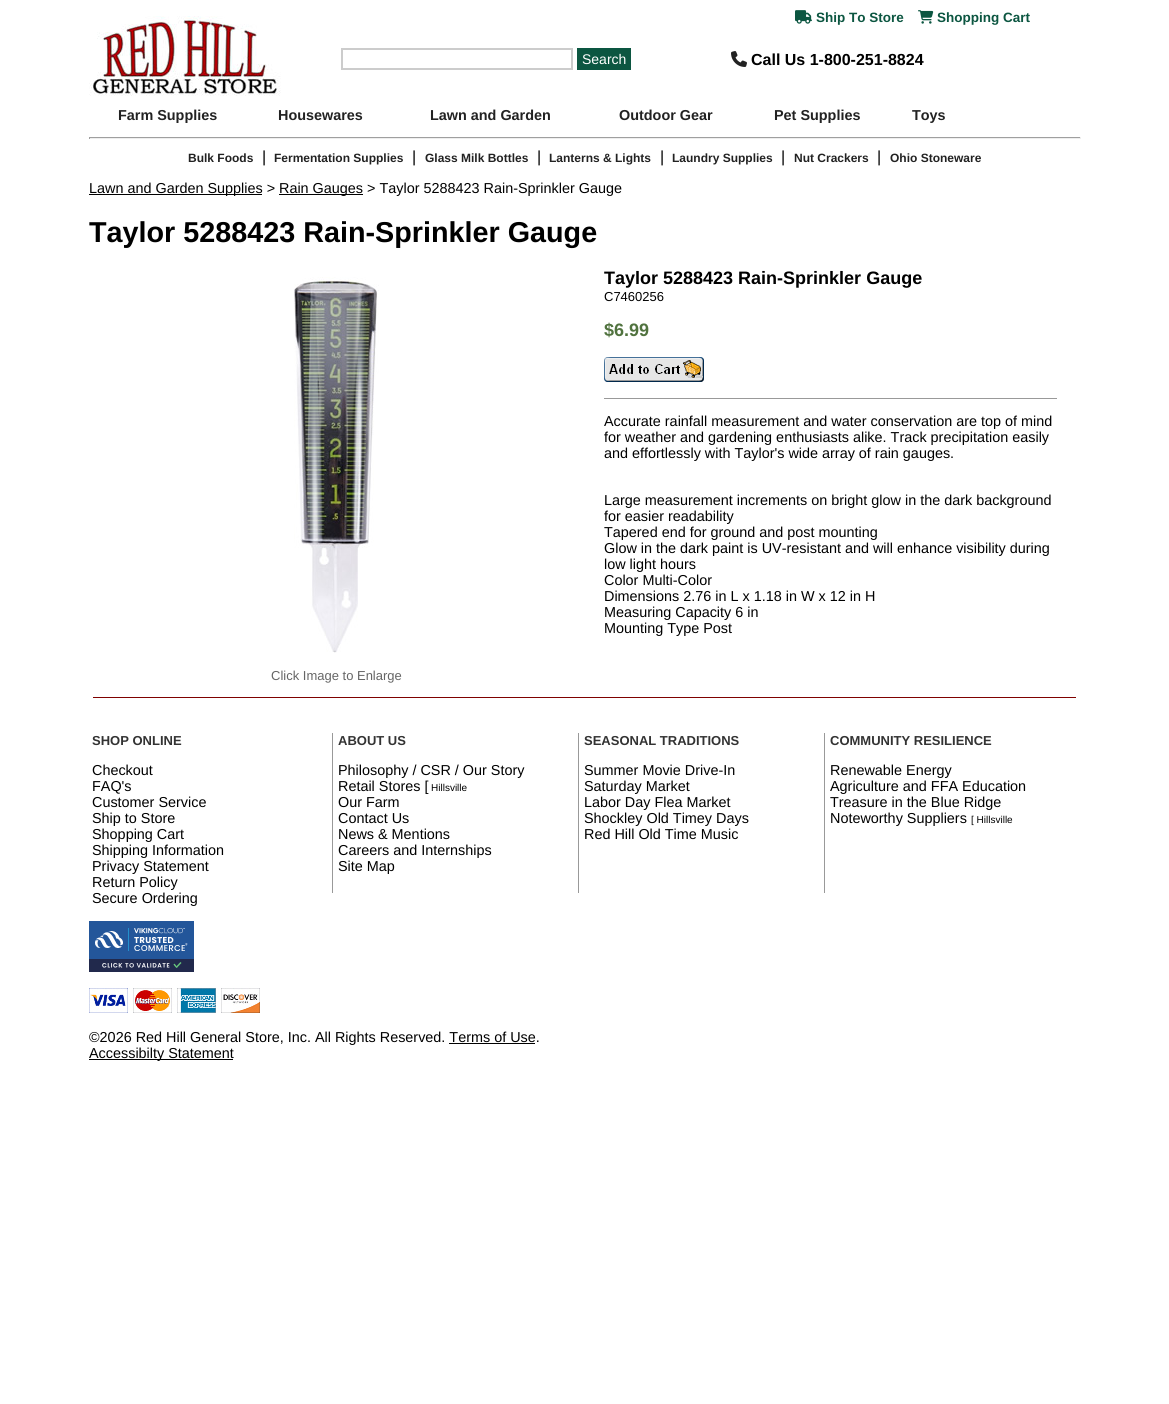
import math
import cairo


def use_color(cr, r, g, b):
  cr.set_source_rgb(r / 255, g / 255, b / 255)

def text(cr, x, y, s, family, size, color, bold=False, italic=False):
  cr.select_font_face(family, cairo.FONT_SLANT_ITALIC if italic else cairo.FONT_SLANT_NORMAL, cairo.FONT_WEIGHT_BOLD if bold else cairo.FONT_WEIGHT_NORMAL)
  cr.set_font_size(size)
  use_color(cr, *color)
  cr.move_to(x, y)
  cr.show_text(s)

def box(cr, x, y, w, h, *color):
  use_color(cr, *color)
  cr.rectangle(x, y, w, h)
  cr.fill()

def picture(cr, path, x, y, w, h):
  cr.save()
  cr.set_source_surface(cairo.ImageSurface.create_from_png(path), x, y)
  cr.rectangle(x, y, w, h)
  cr.fill()
  cr.restore()

def draw(cr):
  use_color(cr, 255, 255, 255)
  cr.paint()
  picture(cr, "img_01.png", 795, 10, 17, 14)
  picture(cr, "img_02.png", 918, 10, 16, 14)
  picture(cr, "img_03.png", 89, 16, 192, 80)
  cr.rectangle(342, 49, 230, 20)
  use_color(cr, 204, 204, 204)
  cr.stroke()
  box(cr, 577, 48, 54, 22, 12, 86, 65)
  picture(cr, "img_04.png", 731, 51, 16, 16)
  box(cr, 89, 137, 992, 1, 159, 159, 159)
  box(cr, 1080, 137, 1, 2, 238, 238, 238)
  box(cr, 89, 138, 992, 1, 238, 238, 238)
  box(cr, 89, 137, 1, 2, 159, 159, 159)
  box(cr, 89, 194, 173, 1, 0, 0, 0)
  box(cr, 279, 194, 84, 1, 0, 0, 0)
  picture(cr, "img_05.png", 604, 357, 100, 25)
  box(cr, 604, 398, 453, 1, 153, 153, 153)
  picture(cr, "img_06.png", 294, 277, 85, 376)
  box(cr, 93, 697, 983, 1, 127, 1, 0)
  box(cr, 332, 733, 1, 160, 153, 153, 153)
  box(cr, 578, 733, 1, 160, 153, 153, 153)
  box(cr, 824, 733, 1, 160, 153, 153, 153)
  picture(cr, "img_07.png", 89, 921, 105, 51)
  picture(cr, "img_08.png", 89, 988, 171, 25)
  box(cr, 449, 1043, 86, 1, 0, 0, 0)
  box(cr, 89, 1059, 144, 1, 0, 0, 0)
  text(cr, 816, 22, "Ship To Store", "Liberation Sans", 13.5, (12, 86, 65), bold=True)
  text(cr, 937, 22, "Shopping Cart", "Liberation Sans", 13.5, (12, 86, 65), bold=True)
  text(cr, 582, 64, "Search", "Liberation Sans", 14, (255, 255, 255))
  text(cr, 751, 65, "Call Us 1-800-251-8824", "Liberation Sans", 16, (0, 0, 0), bold=True)
  text(cr, 118, 120, "Farm Supplies", "Liberation Sans", 14.4, (34, 34, 34), bold=True)
  text(cr, 278, 120, "Housewares", "Liberation Sans", 14.4, (34, 34, 34), bold=True)
  text(cr, 430, 120, "Lawn and Garden", "Liberation Sans", 14.4, (34, 34, 34), bold=True)
  text(cr, 619, 120, "Outdoor Gear", "Liberation Sans", 14.4, (34, 34, 34), bold=True)
  text(cr, 774, 120, "Pet Supplies", "Liberation Sans", 14.4, (34, 34, 34), bold=True)
  text(cr, 912, 120, "Toys", "Liberation Sans", 14.4, (34, 34, 34), bold=True)
  text(cr, 188, 162, "Bulk Foods", "Liberation Sans", 12, (34, 34, 34), bold=True)
  text(cr, 262, 162, "|", "Liberation Sans", 16, (0, 0, 0))
  text(cr, 274, 162, "Fermentation Supplies", "Liberation Sans", 12, (34, 34, 34), bold=True)
  text(cr, 412, 162, "|", "Liberation Sans", 16, (0, 0, 0))
  text(cr, 425, 162, "Glass Milk Bottles", "Liberation Sans", 12, (34, 34, 34), bold=True)
  text(cr, 537, 162, "|", "Liberation Sans", 16, (0, 0, 0))
  text(cr, 549, 162, "Lanterns & Lights", "Liberation Sans", 12, (34, 34, 34), bold=True)
  text(cr, 660, 162, "|", "Liberation Sans", 16, (0, 0, 0))
  text(cr, 672, 162, "Laundry Supplies", "Liberation Sans", 12, (34, 34, 34), bold=True)
  text(cr, 781, 162, "|", "Liberation Sans", 16, (0, 0, 0))
  text(cr, 794, 162, "Nut Crackers", "Liberation Sans", 12, (34, 34, 34), bold=True)
  text(cr, 877, 162, "|", "Liberation Sans", 16, (0, 0, 0))
  text(cr, 890, 162, "Ohio Stoneware", "Liberation Sans", 12, (34, 34, 34), bold=True)
  text(cr, 89, 193, "Lawn and Garden Supplies >", "Liberation Sans", 14.4, (0, 0, 0))
  text(cr, 279, 193, "Rain Gauges > Taylor 5288423 Rain-Sprinkler Gauge", "Liberation Sans", 14.4, (0, 0, 0))
  text(cr, 89, 242, "Taylor 5288423 Rain-Sprinkler Gauge", "Liberation Sans", 28.75, (0, 0, 0), bold=True)
  text(cr, 604, 284, "Taylor 5288423 Rain-Sprinkler Gauge", "Liberation Sans", 18, (0, 0, 0), bold=True)
  text(cr, 604, 301, "C7460256", "Liberation Sans", 13, (0, 0, 0))
  text(cr, 604, 336, "$6.99", "Liberation Sans", 18, (81, 115, 63), bold=True)
  text(cr, 604, 426, "Accurate rainfall measurement and water conservation are top of mind", "Liberation Sans", 14.4, (0, 0, 0))
  text(cr, 604, 442, "for weather and gardening enthusiasts alike. Track precipitation easily", "Liberation Sans", 14.4, (0, 0, 0))
  text(cr, 604, 458, "and effortlessly with Taylor's wide array of rain gauges.", "Liberation Sans", 14.4, (0, 0, 0))
  text(cr, 604, 505, "Large measurement increments on bright glow in the dark background", "Liberation Sans", 14.4, (0, 0, 0))
  text(cr, 604, 521, "for easier readability", "Liberation Sans", 14.4, (0, 0, 0))
  text(cr, 604, 537, "Tapered end for ground and post mounting", "Liberation Sans", 14.4, (0, 0, 0))
  text(cr, 604, 553, "Glow in the dark paint is UV-resistant and will enhance visibility during", "Liberation Sans", 14.4, (0, 0, 0))
  text(cr, 604, 569, "low light hours", "Liberation Sans", 14.4, (0, 0, 0))
  text(cr, 604, 585, "Color Multi-Color", "Liberation Sans", 14.4, (0, 0, 0))
  text(cr, 604, 601, "Dimensions 2.76 in L x 1.18 in W x 12 in H", "Liberation Sans", 14.4, (0, 0, 0))
  text(cr, 604, 617, "Measuring Capacity 6 in", "Liberation Sans", 14.4, (0, 0, 0))
  text(cr, 604, 633, "Mounting Type Post", "Liberation Sans", 14.4, (0, 0, 0))
  text(cr, 271, 680, "Click Image to Enlarge", "Liberation Sans", 13, (102, 102, 102))
  text(cr, 92, 745, "SHOP ONLINE", "Liberation Sans", 13, (51, 51, 51), bold=True)
  text(cr, 92, 775, "Checkout", "Liberation Sans", 14.4, (0, 0, 0))
  text(cr, 92, 791, "FAQ's", "Liberation Sans", 14.4, (0, 0, 0))
  text(cr, 92, 807, "Customer Service", "Liberation Sans", 14.4, (0, 0, 0))
  text(cr, 92, 823, "Ship to Store", "Liberation Sans", 14.4, (0, 0, 0))
  text(cr, 92, 839, "Shopping Cart", "Liberation Sans", 14.4, (0, 0, 0))
  text(cr, 92, 855, "Shipping Information", "Liberation Sans", 14.4, (0, 0, 0))
  text(cr, 92, 871, "Privacy Statement", "Liberation Sans", 14.4, (0, 0, 0))
  text(cr, 92, 887, "Return Policy", "Liberation Sans", 14.4, (0, 0, 0))
  text(cr, 92, 903, "Secure Ordering", "Liberation Sans", 14.4, (0, 0, 0))
  text(cr, 338, 745, "ABOUT US", "Liberation Sans", 13, (51, 51, 51), bold=True)
  text(cr, 338, 775, "Philosophy / CSR / Our Story", "Liberation Sans", 14.4, (0, 0, 0))
  text(cr, 338, 791, "Retail Stores [", "Liberation Sans", 14.4, (0, 0, 0))
  text(cr, 431, 791, "Hillsville", "Liberation Sans", 10, (0, 0, 0))
  text(cr, 338, 807, "Our Farm", "Liberation Sans", 14.4, (0, 0, 0))
  text(cr, 338, 823, "Contact Us", "Liberation Sans", 14.4, (0, 0, 0))
  text(cr, 338, 839, "News & Mentions", "Liberation Sans", 14.4, (0, 0, 0))
  text(cr, 338, 855, "Careers and Internships", "Liberation Sans", 14.4, (0, 0, 0))
  text(cr, 338, 871, "Site Map", "Liberation Sans", 14.4, (0, 0, 0))
  text(cr, 584, 745, "SEASONAL TRADITIONS", "Liberation Sans", 13, (51, 51, 51), bold=True)
  text(cr, 584, 775, "Summer Movie Drive-In", "Liberation Sans", 14.4, (0, 0, 0))
  text(cr, 584, 791, "Saturday Market", "Liberation Sans", 14.4, (0, 0, 0))
  text(cr, 584, 807, "Labor Day Flea Market", "Liberation Sans", 14.4, (0, 0, 0))
  text(cr, 584, 823, "Shockley Old Timey Days", "Liberation Sans", 14.4, (0, 0, 0))
  text(cr, 584, 839, "Red Hill Old Time Music", "Liberation Sans", 14.4, (0, 0, 0))
  text(cr, 830, 745, "COMMUNITY RESILIENCE", "Liberation Sans", 13, (51, 51, 51), bold=True)
  text(cr, 830, 775, "Renewable Energy", "Liberation Sans", 14.4, (0, 0, 0))
  text(cr, 830, 791, "Agriculture and FFA Education", "Liberation Sans", 14.4, (0, 0, 0))
  text(cr, 830, 807, "Treasure in the Blue Ridge", "Liberation Sans", 14.4, (0, 0, 0))
  text(cr, 830, 823, "Noteworthy Suppliers", "Liberation Sans", 14.4, (0, 0, 0))
  text(cr, 971, 823, "[ Hillsville", "Liberation Sans", 10, (0, 0, 0))
  text(cr, 89, 1042, "©2026 Red Hill General Store, Inc. All Rights Reserved. Terms of Use.", "Liberation Sans", 14.4, (0, 0, 0))
  text(cr, 89, 1058, "Accessibilty Statement", "Liberation Sans", 14.4, (0, 0, 0))


surface = cairo.ImageSurface(cairo.FORMAT_RGB24, 1169, 1404)
cr = cairo.Context(surface)
options = cairo.FontOptions()
options.set_hint_metrics(cairo.HINT_METRICS_OFF)
options.set_hint_style(cairo.HINT_STYLE_NONE)
cr.set_font_options(options)
cr.set_miter_limit(4)
draw(cr)
surface.write_to_png("out.png")
